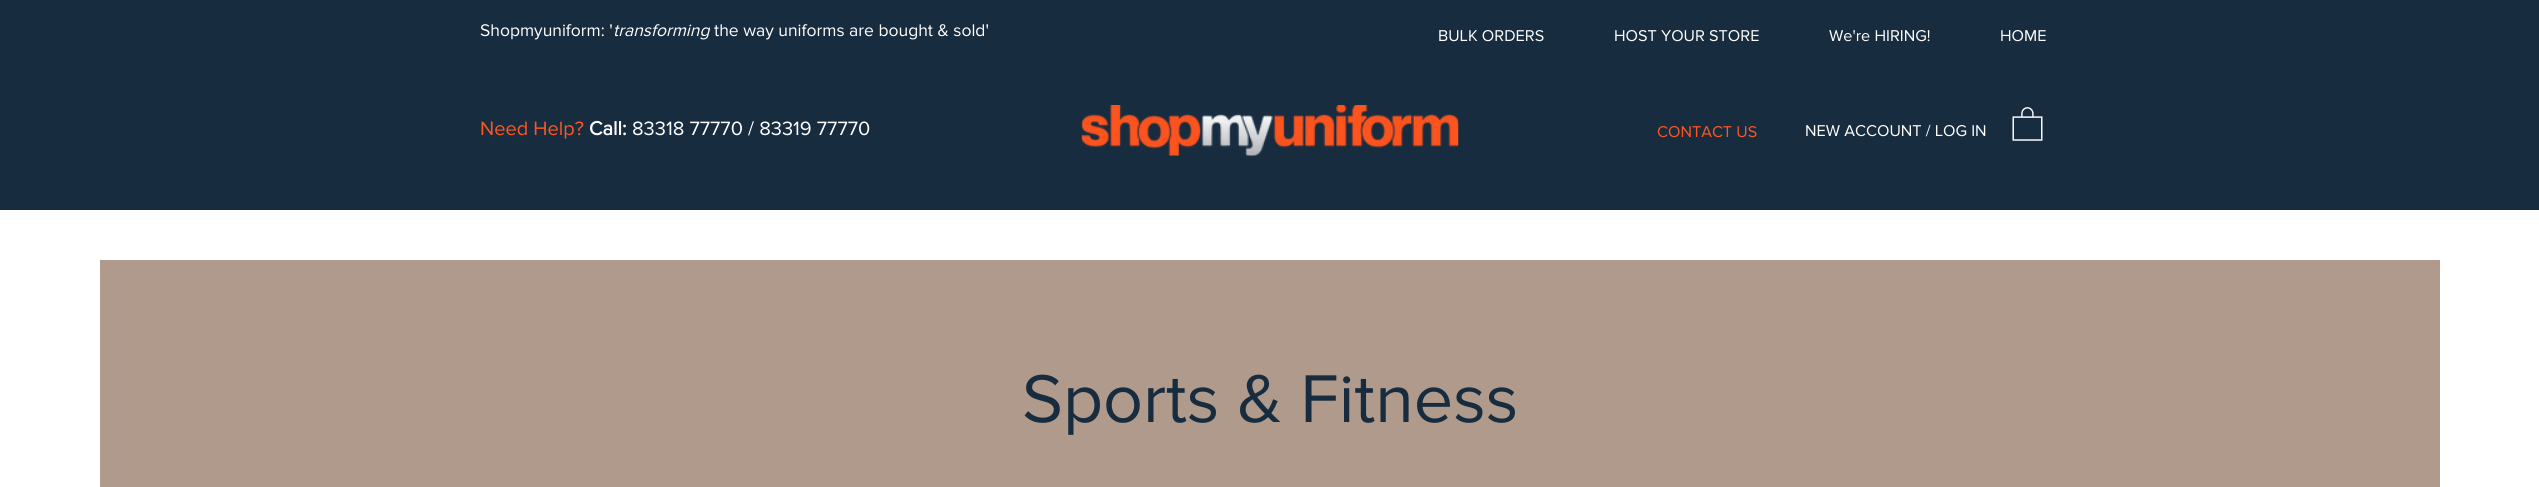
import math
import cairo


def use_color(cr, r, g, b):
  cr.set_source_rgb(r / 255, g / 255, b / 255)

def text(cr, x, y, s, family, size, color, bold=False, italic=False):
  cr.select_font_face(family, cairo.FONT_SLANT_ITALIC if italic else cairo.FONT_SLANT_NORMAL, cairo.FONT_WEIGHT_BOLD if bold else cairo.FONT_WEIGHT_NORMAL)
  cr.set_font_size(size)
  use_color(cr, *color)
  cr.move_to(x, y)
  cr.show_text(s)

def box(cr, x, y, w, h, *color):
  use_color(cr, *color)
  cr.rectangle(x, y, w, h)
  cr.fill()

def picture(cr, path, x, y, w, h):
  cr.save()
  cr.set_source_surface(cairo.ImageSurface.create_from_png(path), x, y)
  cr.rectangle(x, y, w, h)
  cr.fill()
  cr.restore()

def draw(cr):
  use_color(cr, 255, 255, 255)
  cr.paint()
  box(cr, 0, 0, 2539, 210, 24, 44, 64)
  picture(cr, "img_01.png", 1081, 105, 378, 51)
  picture(cr, "img_02.png", 2012, 107, 31, 34)
  box(cr, 100, 260, 2340, 227, 175, 154, 139)
  text(cr, 480, 36, "Shopmyuniform: '", "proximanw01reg", 17.5, (255, 255, 255))
  text(cr, 613, 36, "transforming", "proximanw01reg", 17.5, (255, 255, 255), italic=True)
  text(cr, 714, 36, "the way uniforms are bought & sold'", "proximanw01reg", 17.5, (255, 255, 255))
  text(cr, 1438, 41, "BULK ORDERS", "proximanw01reg", 16.25, (255, 255, 255))
  text(cr, 1614, 41, "HOST YOUR STORE", "proximanw01reg", 16.25, (255, 255, 255))
  text(cr, 1829, 41, "We're HIRING!", "proximanw01reg", 16.25, (255, 255, 255))
  text(cr, 2000, 41, "HOME", "proximanw01reg", 16.25, (255, 255, 255))
  text(cr, 480, 135, "Need Help?", "proximanw01reg", 20, (255, 86, 31))
  text(cr, 589, 135, "Call:", "proximanw01reg", 20, (255, 255, 255), bold=True)
  text(cr, 632, 135, "83318 77770 / 83319 77770", "proximanw01reg", 20, (255, 255, 255))
  text(cr, 1657, 137, "CONTACT US", "proximanw01reg", 16.25, (255, 86, 31))
  text(cr, 1805, 136, "NEW ACCOUNT / LOG IN", "proximanw01reg", 16.25, (255, 255, 255))
  text(cr, 1022, 422, "Sports & Fitness", "proximanw01reg", 70, (24, 44, 64))


surface = cairo.ImageSurface(cairo.FORMAT_RGB24, 2539, 487)
cr = cairo.Context(surface)
options = cairo.FontOptions()
options.set_hint_metrics(cairo.HINT_METRICS_OFF)
options.set_hint_style(cairo.HINT_STYLE_NONE)
cr.set_font_options(options)
cr.set_miter_limit(4)
draw(cr)
surface.write_to_png("out.png")
